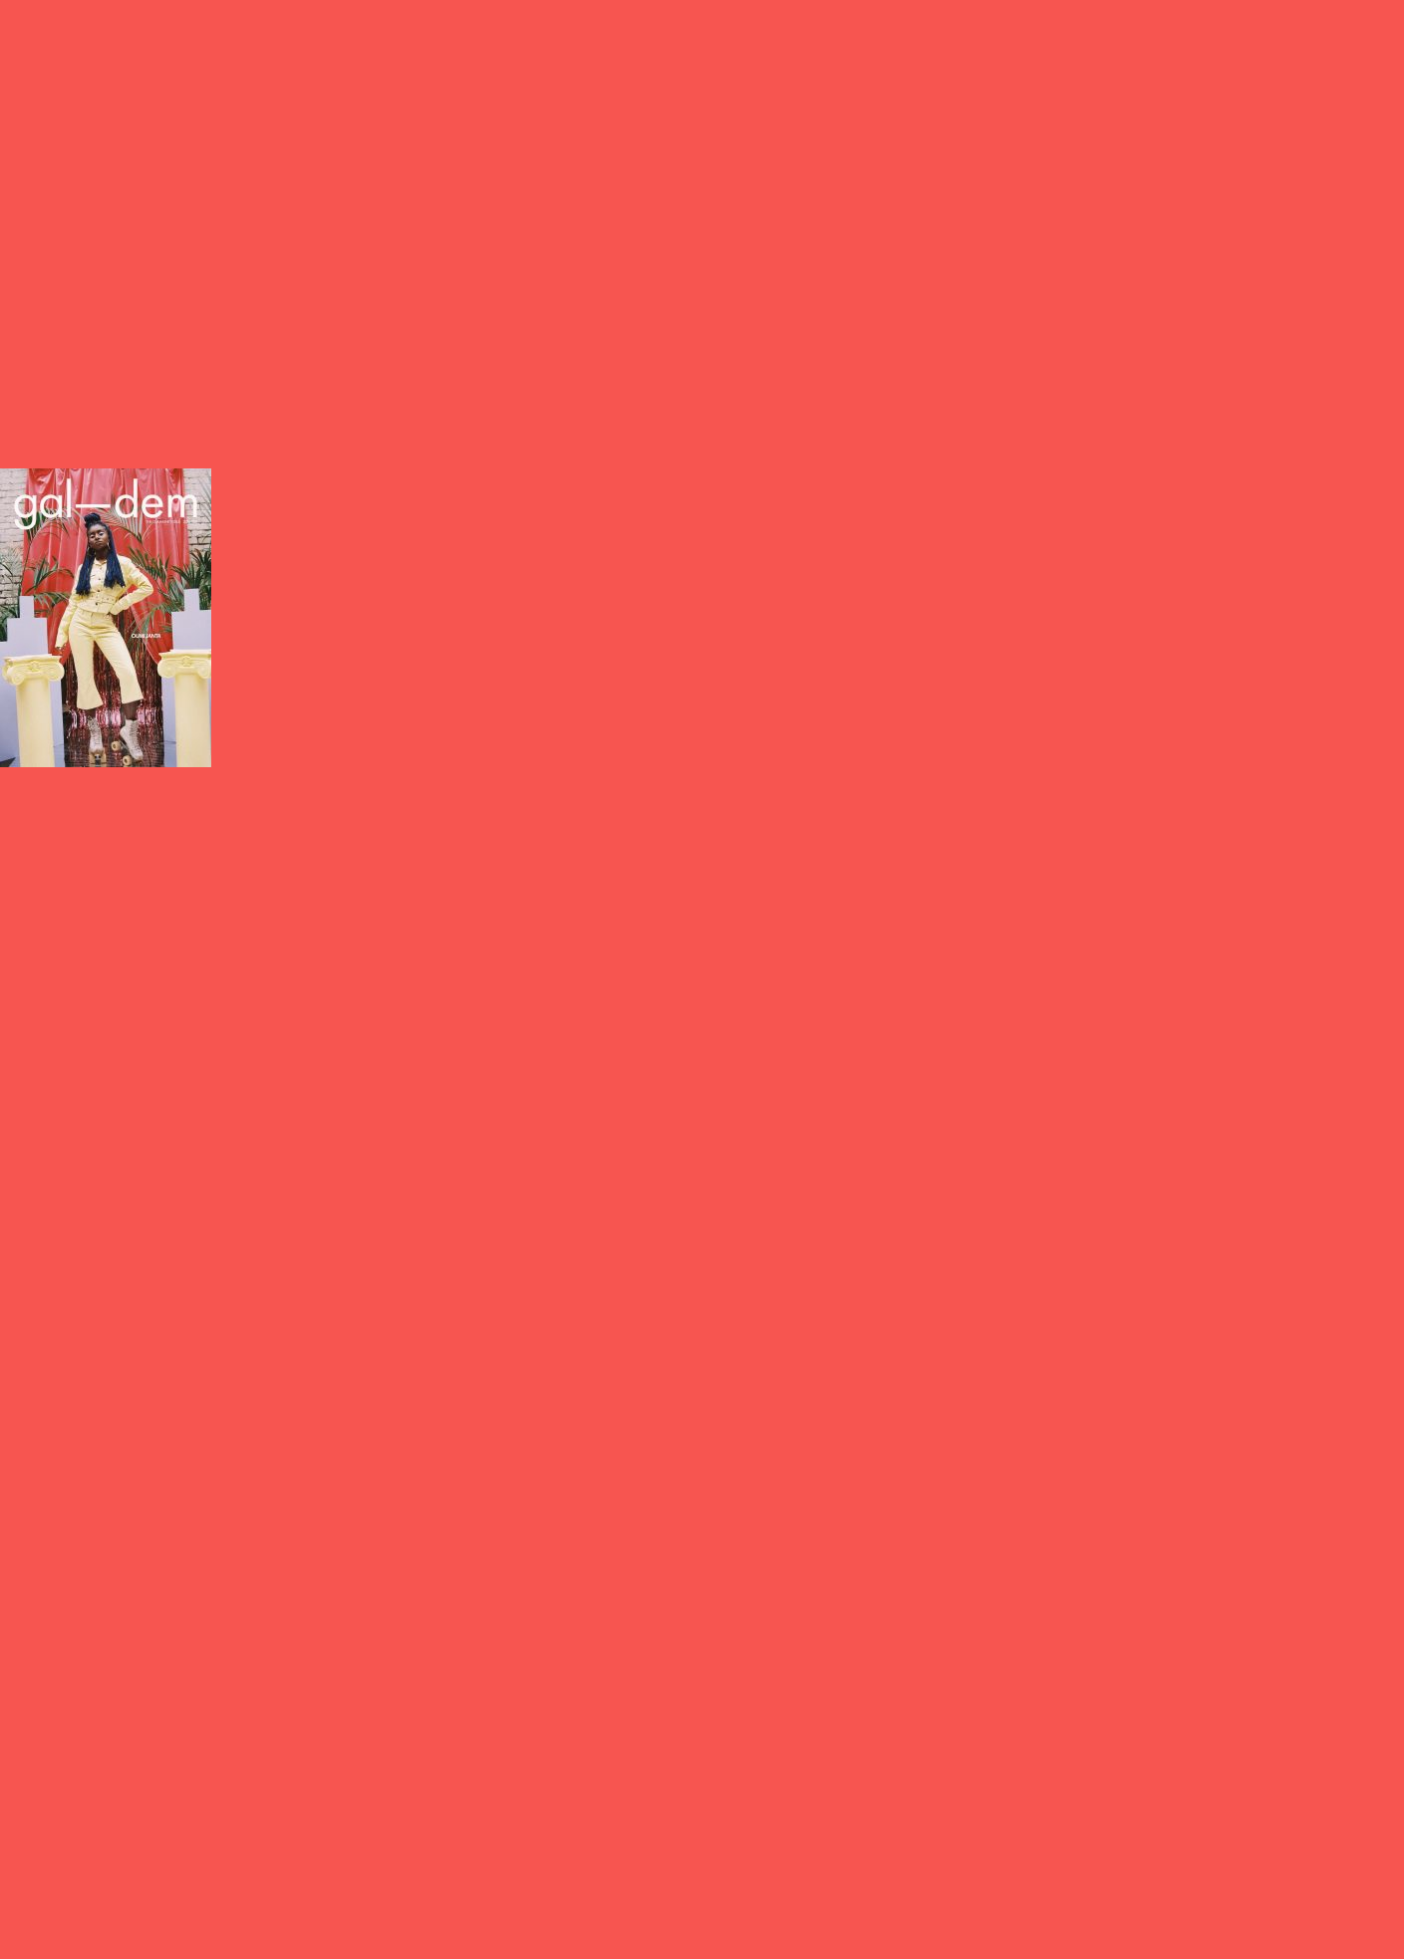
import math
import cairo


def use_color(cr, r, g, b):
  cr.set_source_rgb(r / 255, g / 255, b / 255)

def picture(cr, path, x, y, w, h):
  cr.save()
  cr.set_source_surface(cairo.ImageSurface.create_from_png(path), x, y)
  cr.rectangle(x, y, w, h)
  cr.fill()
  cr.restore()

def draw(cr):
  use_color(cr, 247, 85, 80)
  cr.paint()
  picture(cr, "img_01.png", 0, 468, 212, 300)


surface = cairo.ImageSurface(cairo.FORMAT_RGB24, 1404, 1959)
cr = cairo.Context(surface)
options = cairo.FontOptions()
options.set_hint_metrics(cairo.HINT_METRICS_OFF)
options.set_hint_style(cairo.HINT_STYLE_NONE)
cr.set_font_options(options)
cr.set_miter_limit(4)
draw(cr)
surface.write_to_png("out.png")
